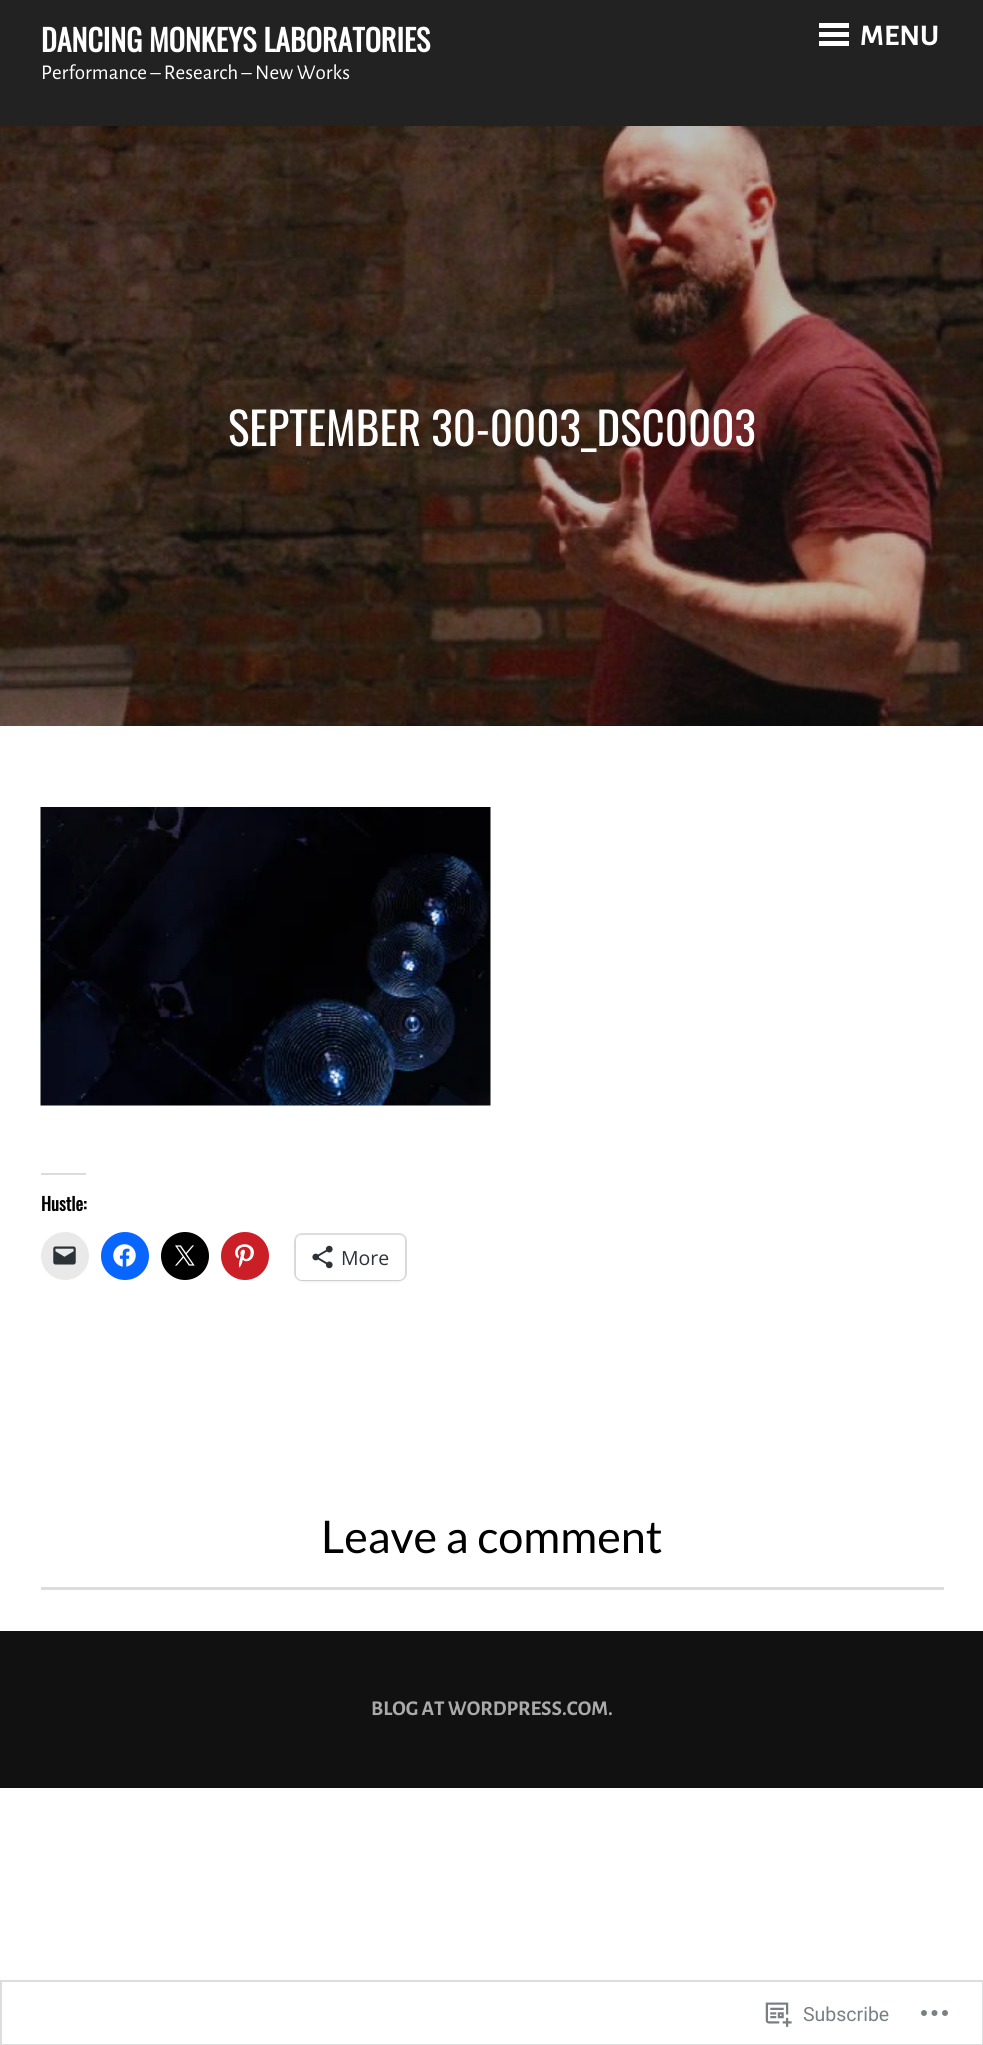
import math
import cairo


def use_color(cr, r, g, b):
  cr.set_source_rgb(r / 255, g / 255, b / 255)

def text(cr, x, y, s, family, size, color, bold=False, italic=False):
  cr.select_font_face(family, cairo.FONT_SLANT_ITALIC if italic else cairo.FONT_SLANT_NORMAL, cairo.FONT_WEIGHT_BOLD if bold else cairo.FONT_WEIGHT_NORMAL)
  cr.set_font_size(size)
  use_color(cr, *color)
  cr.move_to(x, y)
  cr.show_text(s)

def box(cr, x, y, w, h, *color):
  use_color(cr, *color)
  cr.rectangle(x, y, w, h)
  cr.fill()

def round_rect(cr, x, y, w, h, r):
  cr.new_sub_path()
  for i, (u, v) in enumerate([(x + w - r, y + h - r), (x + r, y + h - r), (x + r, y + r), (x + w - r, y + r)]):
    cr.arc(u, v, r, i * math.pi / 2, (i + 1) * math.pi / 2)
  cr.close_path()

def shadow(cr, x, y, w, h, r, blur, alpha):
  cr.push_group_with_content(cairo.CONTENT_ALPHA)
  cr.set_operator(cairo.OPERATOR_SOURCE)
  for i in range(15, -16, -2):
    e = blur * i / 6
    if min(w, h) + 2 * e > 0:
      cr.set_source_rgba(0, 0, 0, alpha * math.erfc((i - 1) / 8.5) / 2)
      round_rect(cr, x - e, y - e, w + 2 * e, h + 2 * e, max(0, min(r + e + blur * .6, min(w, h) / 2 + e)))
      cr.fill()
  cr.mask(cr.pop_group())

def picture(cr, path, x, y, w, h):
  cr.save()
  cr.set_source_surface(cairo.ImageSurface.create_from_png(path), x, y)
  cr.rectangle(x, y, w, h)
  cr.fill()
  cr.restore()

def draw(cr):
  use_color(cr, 255, 255, 255)
  cr.paint()
  box(cr, 0, 0, 983, 126, 34, 34, 34)
  box(cr, 819, 32, 30, 5, 255, 255, 255)
  box(cr, 819, 23, 30, 5, 255, 255, 255)
  box(cr, 819, 41, 30, 5, 255, 255, 255)
  picture(cr, "img_01.png", 0, 126, 983, 600)
  picture(cr, "img_02.png", 40, 807, 451, 299)
  box(cr, 41, 1173, 45, 2, 220, 220, 222)
  use_color(cr, 233, 233, 233)
  cr.arc(65, 1256, 24, 0, 2 * math.pi)
  cr.fill()
  picture(cr, "img_03.png", 53, 1246, 23, 19)
  use_color(cr, 8, 102, 255)
  cr.arc(125, 1256, 24, 0, 2 * math.pi)
  cr.fill()
  picture(cr, "img_04.png", 113, 1244, 23, 23)
  use_color(cr, 0, 0, 0)
  cr.arc(185, 1256, 24, 0, 2 * math.pi)
  cr.fill()
  picture(cr, "img_05.png", 175, 1245, 20, 21)
  use_color(cr, 202, 31, 39)
  cr.arc(245, 1256, 24, 0, 2 * math.pi)
  cr.fill()
  picture(cr, "img_06.png", 235, 1244, 19, 24)
  round_rect(cr, 295, 1234, 111, 46, 7)
  use_color(cr, 224, 224, 224)
  cr.stroke()
  use_color(cr, 0, 0, 0)
  shadow(cr, 296, 1236, 109, 45, 6, 1.5, 0.12)
  use_color(cr, 255, 255, 255)
  round_rect(cr, 296, 1235, 109, 45, 6)
  cr.fill()
  picture(cr, "img_07.png", 312, 1245, 21, 24)
  box(cr, 41, 1587, 903, 3, 220, 220, 222)
  box(cr, 0, 1631, 983, 157, 17, 17, 17)
  cr.rectangle(1, 1981, 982, 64)
  use_color(cr, 221, 221, 223)
  cr.stroke()
  picture(cr, "img_08.png", 765, 2002, 27, 25)
  picture(cr, "img_09.png", 921, 2010, 27, 6)
  text(cr, 41, 52, "DANCING MONKEYS LABORATORIES", "Oswald", 30, (255, 255, 255), bold=True)
  text(cr, 41, 79, "Performance – Research – New Works", "Alegreya Sans", 21, (255, 255, 255))
  text(cr, 860, 45, "MENU", "Alegreya Sans", 30, (255, 255, 255), bold=True)
  text(cr, 228, 446, "SEPTEMBER 30-0003_DSC0003", "Oswald", 45, (255, 255, 255))
  text(cr, 41, 1211, "Hustle:", "Oswald", 18, (0, 0, 0), bold=True)
  text(cr, 341, 1265, "More", "Open Sans", 19.5, (44, 51, 56))
  text(cr, 321, 1553, "Leave a comment", "Lato", 45, (0, 0, 0))
  text(cr, 371, 1715, "BLOG AT WORDPRESS.COM.", "Alegreya Sans", 21, (170, 170, 170), bold=True)
  text(cr, 803, 2021, "Subscribe", "Roboto", 19.5, (123, 127, 133))


surface = cairo.ImageSurface(cairo.FORMAT_RGB24, 983, 2045)
cr = cairo.Context(surface)
options = cairo.FontOptions()
options.set_hint_metrics(cairo.HINT_METRICS_OFF)
options.set_hint_style(cairo.HINT_STYLE_NONE)
cr.set_font_options(options)
cr.set_miter_limit(4)
draw(cr)
surface.write_to_png("out.png")
